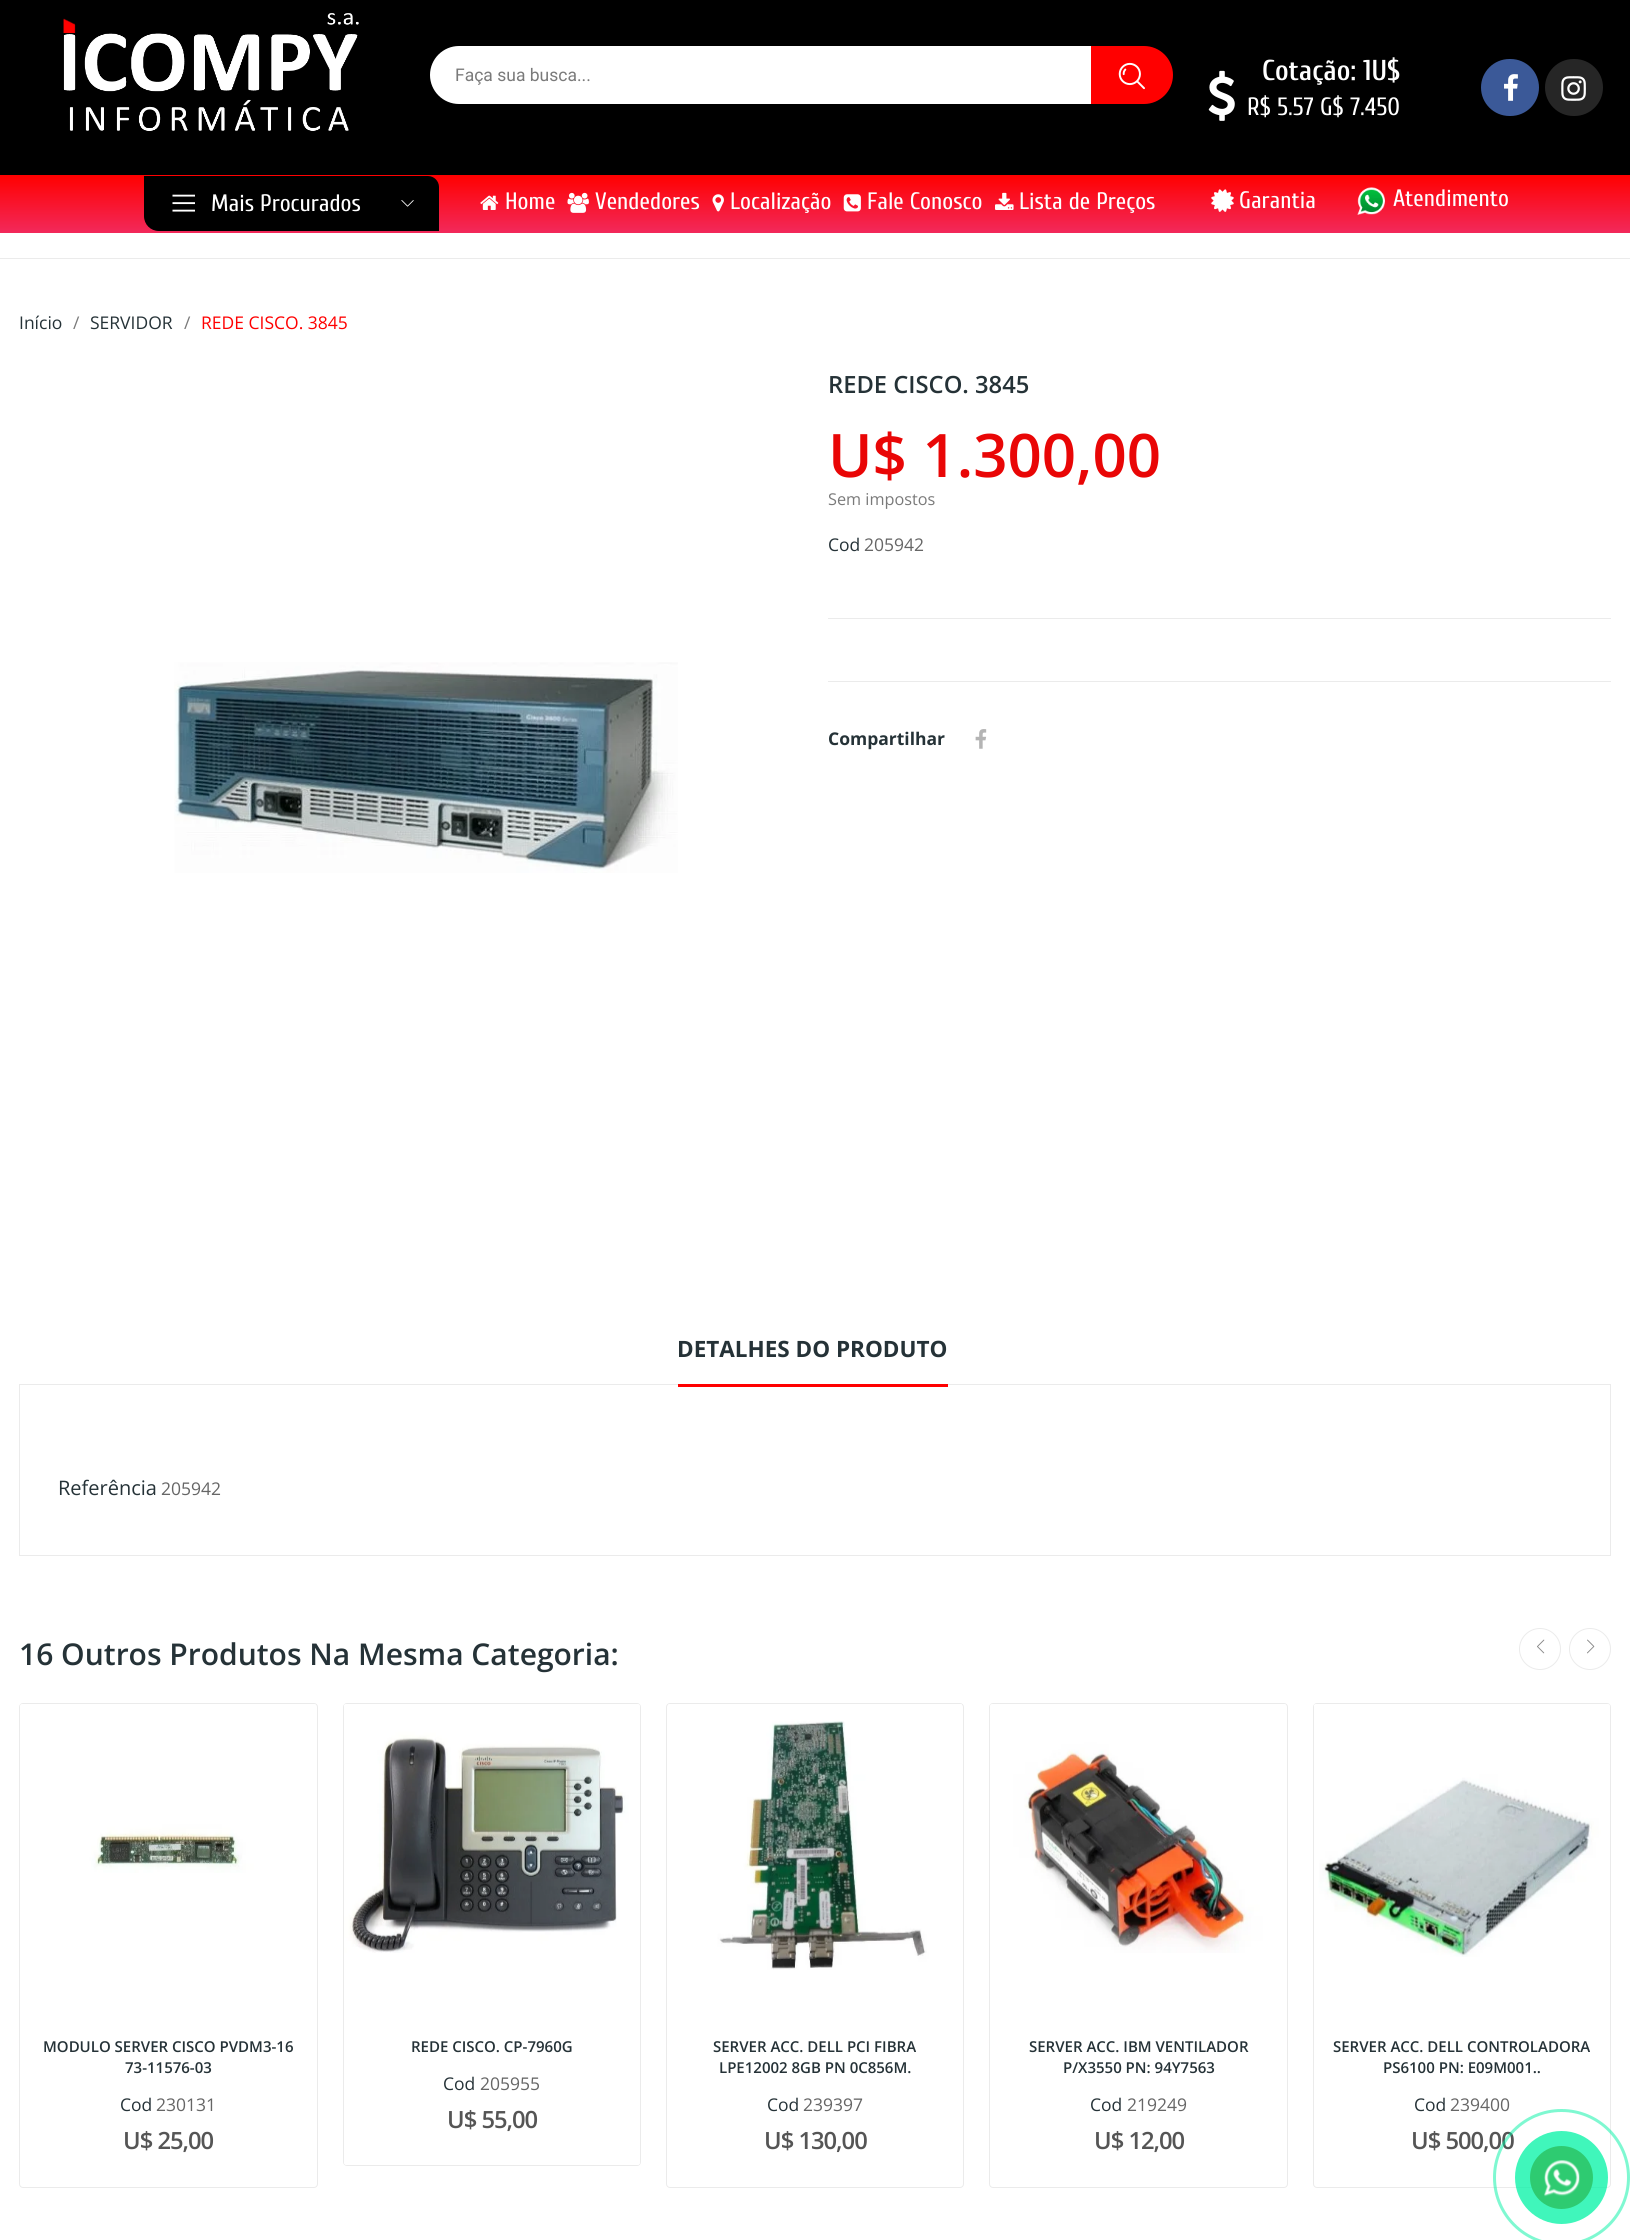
import math
import cairo


def use_color(cr, r, g, b):
  cr.set_source_rgb(r / 255, g / 255, b / 255)

def text(cr, x, y, s, family, size, color, bold=False, italic=False):
  cr.select_font_face(family, cairo.FONT_SLANT_ITALIC if italic else cairo.FONT_SLANT_NORMAL, cairo.FONT_WEIGHT_BOLD if bold else cairo.FONT_WEIGHT_NORMAL)
  cr.set_font_size(size)
  use_color(cr, *color)
  cr.move_to(x, y)
  cr.show_text(s)

def spaced_text(cr, x, y, s, letter, word):
  cr.move_to(x, y)
  for ch in s:
    cr.show_text(ch)
    cr.rel_move_to(letter + word * (ch == ' '), 0)

def box(cr, x, y, w, h, *color):
  use_color(cr, *color)
  cr.rectangle(x, y, w, h)
  cr.fill()

def round_rect(cr, x, y, w, h, r):
  cr.new_sub_path()
  for i, (u, v) in enumerate([(x + w - r, y + h - r), (x + r, y + h - r), (x + r, y + r), (x + w - r, y + r)]):
    cr.arc(u, v, r, i * math.pi / 2, (i + 1) * math.pi / 2)
  cr.close_path()

def picture(cr, path, x, y, w, h):
  cr.save()
  cr.set_source_surface(cairo.ImageSurface.create_from_png(path), x, y)
  cr.rectangle(x, y, w, h)
  cr.fill()
  cr.restore()

def draw(cr):
  use_color(cr, 255, 255, 255)
  cr.paint()
  box(cr, 0, 258, 1630, 1, 235, 235, 235)
  box(cr, 0, 0, 1630, 175, 0, 0, 0)
  picture(cr, "img_01.png", 63, 13, 296, 118)
  use_color(cr, 255, 255, 255)
  cr.new_path()
  cr.move_to(459, 46)
  cr.line_to(1091, 46)
  cr.line_to(1091, 104)
  cr.line_to(459, 104)
  cr.curve_to(443, 104, 430, 91, 430, 75)
  cr.curve_to(430, 59, 443, 46, 459, 46)
  cr.close_path()
  cr.fill()
  use_color(cr, 255, 0, 0)
  cr.new_path()
  cr.move_to(1091, 46)
  cr.line_to(1144, 46)
  cr.curve_to(1160, 46, 1173, 59, 1173, 75)
  cr.curve_to(1173, 91, 1160, 104, 1144, 104)
  cr.line_to(1091, 104)
  cr.close_path()
  cr.fill()
  picture(cr, "img_02.png", 1118, 62, 27, 28)
  picture(cr, "img_03.png", 1208, 70, 27, 51)
  use_color(cr, 59, 89, 152)
  round_rect(cr, 1481, 59, 58, 57, 28.5)
  cr.fill()
  picture(cr, "img_04.png", 1504, 74, 14, 27)
  use_color(cr, 38, 38, 38)
  round_rect(cr, 1545, 59, 58, 57, 28.5)
  cr.fill()
  picture(cr, "img_05.png", 1561, 76, 25, 25)
  gradient = cairo.LinearGradient(815, 175, 815, 233)
  gradient.add_color_stop_rgba(0, 1, 0, 0, 1)
  gradient.add_color_stop_rgba(1, 0.949, 0.161, 0.357, 1)
  cr.set_source(gradient)
  cr.rectangle(0, 175, 1630, 58)
  cr.fill()
  use_color(cr, 0, 0, 0)
  cr.new_path()
  cr.move_to(144, 176)
  cr.line_to(428, 176)
  cr.curve_to(434, 176, 439, 181, 439, 187)
  cr.line_to(439, 231)
  cr.line_to(159, 231)
  cr.curve_to(150.5, 231, 144, 224.5, 144, 216)
  cr.close_path()
  cr.fill()
  picture(cr, "img_06.png", 172, 194, 23, 18)
  picture(cr, "img_07.png", 401, 200, 13, 7)
  picture(cr, "img_08.png", 480, 195, 19, 15)
  picture(cr, "img_09.png", 567, 192, 22, 21)
  picture(cr, "img_10.png", 712, 194, 12, 18)
  picture(cr, "img_11.png", 843, 194, 18, 18)
  picture(cr, "img_12.png", 995, 192, 19, 18)
  picture(cr, "img_13.png", 1211, 189, 23, 23)
  picture(cr, "img_14.png", 1357, 187, 28, 28)
  picture(cr, "img_15.png", 174, 662, 504, 211)
  box(cr, 828, 618, 783, 1, 235, 235, 235)
  box(cr, 828, 681, 783, 1, 235, 235, 235)
  picture(cr, "img_16.png", 975, 729, 12, 20)
  cr.rectangle(19.5, 1384.5, 1591, 171)
  cr.set_line_width(1)
  cr.stroke()
  box(cr, 678, 1384, 270, 3, 255, 0, 0)
  cr.arc(1540, 1649, 20.5, 0, 2 * math.pi)
  use_color(cr, 235, 235, 235)
  cr.stroke()
  picture(cr, "img_17.png", 1537, 1639, 8, 15)
  cr.arc(1590, 1649, 20.5, 0, 2 * math.pi)
  cr.stroke()
  picture(cr, "img_18.png", 1587, 1639, 8, 15)
  round_rect(cr, 19.5, 1703.5, 298, 484, 3.5)
  cr.stroke()
  picture(cr, "img_19.png", 20, 1704, 296, 169)
  round_rect(cr, 343.5, 1703.5, 297, 462, 3.5)
  cr.stroke()
  picture(cr, "img_20.png", 344, 1704, 296, 249)
  use_color(cr, 255, 255, 255)
  cr.new_path()
  cr.move_to(344, 2000)
  cr.line_to(640, 2000)
  cr.line_to(640, 2162.5)
  cr.curve_to(640, 2164, 639, 2165, 637.5, 2165)
  cr.line_to(346.5, 2165)
  cr.curve_to(345, 2165, 344, 2164, 344, 2162.5)
  cr.close_path()
  cr.fill()
  round_rect(cr, 666.5, 1703.5, 297, 484, 3.5)
  use_color(cr, 235, 235, 235)
  cr.stroke()
  picture(cr, "img_21.png", 668, 1704, 294, 266)
  round_rect(cr, 989.5, 1703.5, 298, 484, 3.5)
  cr.stroke()
  picture(cr, "img_22.png", 990, 1704, 296, 249)
  round_rect(cr, 1313.5, 1703.5, 297, 484, 3.5)
  cr.stroke()
  picture(cr, "img_23.png", 1314, 1704, 296, 253)
  text(cr, 455, 81, "Faça sua busca...", "Roboto", 17.5, (122, 122, 122))
  text(cr, 1262, 80, "Cotação: 1U$", "Cuprum SemiBold", 28.75, (255, 255, 255))
  text(cr, 1247, 115, "R$ 5.57 G$ 7.450", "Cuprum", 25, (255, 255, 255))
  text(cr, 211, 211, "Mais Procurados", "Cuprum", 23.75, (255, 255, 255))
  text(cr, 505, 209, "Home", "Cuprum", 23.75, (255, 255, 255))
  text(cr, 595, 209, "Vendedores", "Cuprum", 23.75, (255, 255, 255))
  text(cr, 730, 209, "Localização", "Cuprum", 23.75, (255, 255, 255))
  text(cr, 867, 209, "Fale Conosco", "Cuprum", 23.75, (255, 255, 255))
  text(cr, 1019, 209, "Lista de Preços", "Cuprum", 23.75, (255, 255, 255))
  text(cr, 1239, 208, "Garantia", "Cuprum", 23.75, (255, 255, 255))
  text(cr, 1393, 206, "Atendimento", "Cuprum", 23.75, (255, 255, 255))
  text(cr, 19, 329, "Início", "Open Sans", 17.5, (37, 50, 55))
  text(cr, 73, 329, "/", "Open Sans", 17.5, (122, 122, 122))
  text(cr, 90, 329, "SERVIDOR", "Open Sans", 17.5, (37, 50, 55))
  text(cr, 184, 329, "/", "Open Sans", 17.5, (122, 122, 122))
  text(cr, 201, 329, "REDE CISCO. 3845", "Open Sans", 17.5, (255, 0, 0))
  text(cr, 828, 393, "REDE CISCO. 3845", "Open Sans SemiBold", 23.75, (37, 50, 55))
  text(cr, 828, 477, "U$ 1.300,00", "Open Sans SemiBold", 60, (233, 6, 6))
  text(cr, 828, 505, "Sem impostos", "Open Sans", 16.25, (122, 122, 122))
  text(cr, 828, 551, "Cod", "Open Sans", 17.5, (37, 50, 55))
  text(cr, 864, 551, "205942", "Open Sans", 17.5, (102, 102, 102))
  text(cr, 828, 745, "Compartilhar", "Open Sans", 17.5, (37, 50, 55), bold=True)
  text(cr, 677, 1357, "DETALHES DO PRODUTO", "Open Sans", 22.5, (37, 50, 55), bold=True)
  text(cr, 58, 1495, "Referência", "Open Sans", 20, (37, 50, 55))
  text(cr, 161, 1495, "205942", "Open Sans", 17.5, (102, 102, 102))
  text(cr, 19, 1665, "16 Outros Produtos Na Mesma Categoria:", "Open Sans SemiBold", 30, (37, 50, 55))
  text(cr, 43, 2052, "MODULO SERVER CISCO PVDM3-16", "Open Sans SemiBold", 15, (37, 50, 55))
  text(cr, 125, 2073, "73-11576-03", "Open Sans SemiBold", 15, (37, 50, 55))
  text(cr, 120, 2111, "Cod", "Open Sans", 17.5, (37, 50, 55))
  text(cr, 156, 2111, "230131", "Open Sans", 17.5, (102, 102, 102))
  cr.select_font_face("Open Sans SemiBold")
  cr.set_font_size(23.75)
  use_color(cr, 85, 85, 85)
  spaced_text(cr, 123, 2149, "U$ 25,00", -1, 0)
  text(cr, 411, 2052, "REDE CISCO. CP-7960G", "Open Sans SemiBold", 15, (37, 50, 55))
  text(cr, 443, 2090, "Cod", "Open Sans", 17.5, (37, 50, 55))
  text(cr, 480, 2090, "205955", "Open Sans", 17.5, (102, 102, 102))
  cr.select_font_face("Open Sans SemiBold")
  cr.set_font_size(23.75)
  use_color(cr, 85, 85, 85)
  spaced_text(cr, 447, 2128, "U$ 55,00", -1, 0)
  text(cr, 713, 2052, "SERVER ACC. DELL PCI FIBRA", "Open Sans SemiBold", 15, (37, 50, 55))
  text(cr, 719, 2073, "LPE12002 8GB PN 0C856M.", "Open Sans SemiBold", 15, (37, 50, 55))
  text(cr, 767, 2111, "Cod", "Open Sans", 17.5, (37, 50, 55))
  text(cr, 803, 2111, "239397", "Open Sans", 17.5, (102, 102, 102))
  cr.select_font_face("Open Sans SemiBold")
  cr.set_font_size(23.75)
  use_color(cr, 85, 85, 85)
  spaced_text(cr, 764, 2149, "U$ 130,00", -1, 0)
  text(cr, 1029, 2052, "SERVER ACC. IBM VENTILADOR", "Open Sans SemiBold", 15, (37, 50, 55))
  text(cr, 1063, 2073, "P/X3550 PN: 94Y7563", "Open Sans SemiBold", 15, (37, 50, 55))
  text(cr, 1090, 2111, "Cod", "Open Sans", 17.5, (37, 50, 55))
  text(cr, 1127, 2111, "219249", "Open Sans", 17.5, (102, 102, 102))
  cr.select_font_face("Open Sans SemiBold")
  cr.set_font_size(23.75)
  use_color(cr, 85, 85, 85)
  spaced_text(cr, 1094, 2149, "U$ 12,00", -1, 0)
  text(cr, 1333, 2052, "SERVER ACC. DELL CONTROLADORA", "Open Sans SemiBold", 15, (37, 50, 55))
  text(cr, 1383, 2073, "PS6100 PN: E09M001..", "Open Sans SemiBold", 15, (37, 50, 55))
  text(cr, 1414, 2111, "Cod", "Open Sans", 17.5, (37, 50, 55))
  text(cr, 1450, 2111, "239400", "Open Sans", 17.5, (102, 102, 102))
  cr.select_font_face("Open Sans SemiBold")
  cr.set_font_size(23.75)
  use_color(cr, 85, 85, 85)
  spaced_text(cr, 1411, 2149, "U$ 500,00", -1, 0)
  cr.new_path()
  cr.arc(1561.5, 2177.5, 67, 0, 2 * math.pi)
  cr.set_source_rgba(0, 0.949, 0.643, 0.5)
  cr.set_line_width(3)
  cr.stroke()
  cr.set_source_rgba(0, 0.949, 0.643, 0.75)
  cr.arc(1561.5, 2177.5, 46.5, 0, 2 * math.pi)
  cr.fill()
  use_color(cr, 46, 203, 113)
  cr.arc(1561.5, 2177.5, 31.5, 0, 2 * math.pi)
  cr.fill()
  picture(cr, "img_24.png", 1544, 2160, 36, 37)


surface = cairo.ImageSurface(cairo.FORMAT_RGB24, 1630, 2240)
cr = cairo.Context(surface)
options = cairo.FontOptions()
options.set_hint_metrics(cairo.HINT_METRICS_OFF)
options.set_hint_style(cairo.HINT_STYLE_NONE)
cr.set_font_options(options)
cr.set_miter_limit(4)
draw(cr)
surface.write_to_png("out.png")
